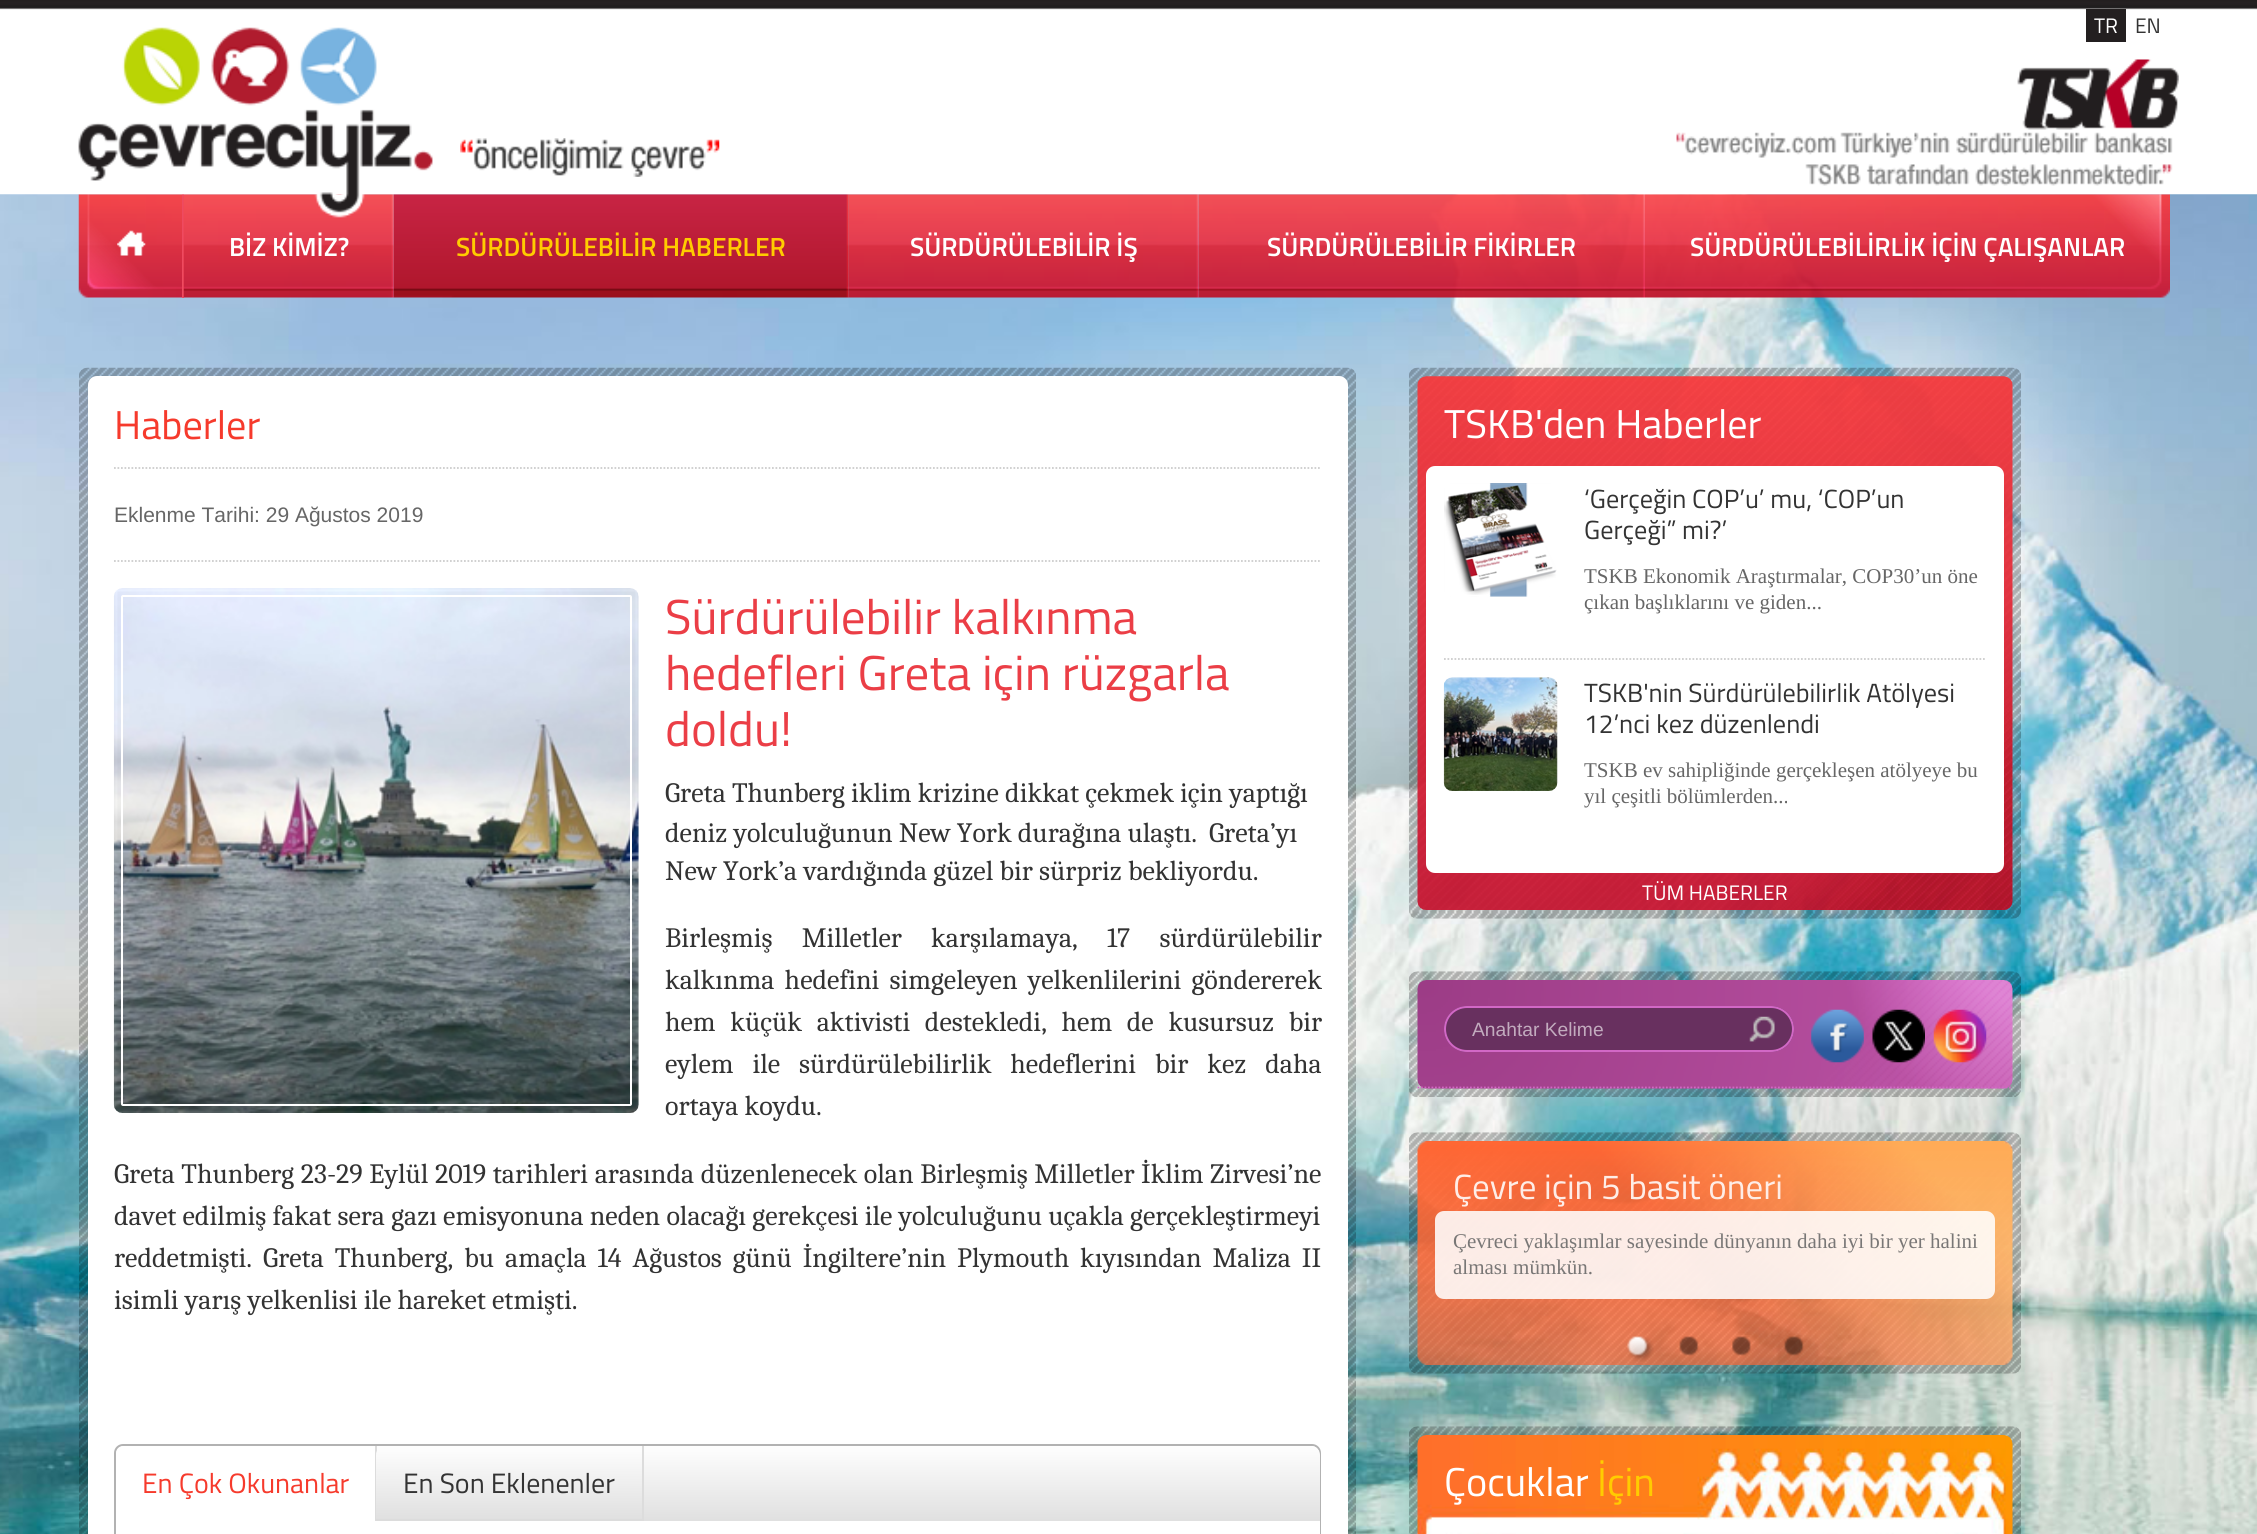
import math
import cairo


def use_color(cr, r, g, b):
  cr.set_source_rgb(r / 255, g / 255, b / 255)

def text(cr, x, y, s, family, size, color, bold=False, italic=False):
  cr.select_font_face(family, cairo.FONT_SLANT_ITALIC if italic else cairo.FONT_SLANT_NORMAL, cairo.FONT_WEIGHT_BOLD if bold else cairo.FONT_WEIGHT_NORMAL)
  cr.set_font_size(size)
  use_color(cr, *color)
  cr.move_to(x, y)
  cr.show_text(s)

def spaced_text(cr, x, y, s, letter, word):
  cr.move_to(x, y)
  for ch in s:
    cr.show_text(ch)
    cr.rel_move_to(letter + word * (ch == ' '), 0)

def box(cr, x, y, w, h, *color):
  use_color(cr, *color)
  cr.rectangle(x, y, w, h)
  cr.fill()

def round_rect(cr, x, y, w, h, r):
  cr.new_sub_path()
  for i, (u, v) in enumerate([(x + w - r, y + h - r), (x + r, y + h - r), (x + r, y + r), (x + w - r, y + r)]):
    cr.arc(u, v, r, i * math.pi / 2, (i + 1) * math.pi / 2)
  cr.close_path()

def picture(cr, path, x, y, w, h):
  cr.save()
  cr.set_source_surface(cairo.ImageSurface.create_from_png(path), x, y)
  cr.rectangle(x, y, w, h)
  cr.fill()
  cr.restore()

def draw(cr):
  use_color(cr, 255, 255, 255)
  cr.paint()
  picture(cr, "img_05.png", 0, 194, 2257, 1340)
  picture(cr, "img_06.png", 78, 194, 104, 104)
  box(cr, 182, 194, 2, 104, 238, 75, 96)
  picture(cr, "img_08.png", 183, 194, 211, 104)
  picture(cr, "img_09.png", 393, 194, 456, 104)
  picture(cr, "img_10.png", 848, 194, 351, 104)
  picture(cr, "img_11.png", 1198, 194, 447, 104)
  picture(cr, "img_12.png", 1645, 194, 525, 104)
  picture(cr, "img_01.png", 0, 0, 2257, 195)
  box(cr, 2086, 9, 40, 33, 35, 31, 32)
  picture(cr, "img_02.png", 1676, 59, 503, 127)
  picture(cr, "img_03.png", 78, 27, 355, 191)
  picture(cr, "img_04.png", 460, 138, 260, 39)
  picture(cr, "img_07.png", 117, 230, 29, 26)
  picture(cr, "img_13.png", 79, 367, 1277, 1167)
  use_color(cr, 255, 255, 255)
  round_rect(cr, 88, 376, 1260, 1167, 9)
  cr.fill()
  cr.new_path()
  cr.move_to(114, 468)
  cr.line_to(1321, 468)
  use_color(cr, 204, 204, 204)
  cr.set_line_width(1.8)
  cr.set_dash([1.75, 1.75])
  cr.stroke()
  cr.new_path()
  cr.move_to(114, 561)
  cr.line_to(1321, 561)
  cr.stroke()
  picture(cr, "img_14.png", 113, 588, 526, 525)
  round_rect(cr, 122, 596, 509, 509, 1)
  use_color(cr, 255, 255, 255)
  cr.set_line_width(2)
  cr.set_dash([])
  cr.stroke()
  round_rect(cr, 115, 1445, 1205, 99, 8)
  use_color(cr, 178, 178, 178)
  cr.stroke()
  gradient = cairo.LinearGradient(718, 1446, 718, 1521)
  gradient.add_color_stop_rgba(0, 0.996, 0.996, 0.996, 1)
  gradient.add_color_stop_rgba(1, 0.878, 0.878, 0.878, 1)
  cr.set_source(gradient)
  cr.new_path()
  cr.move_to(125, 1446)
  cr.line_to(1311, 1446)
  cr.curve_to(1316, 1446, 1320, 1450, 1320, 1455)
  cr.line_to(1320, 1521)
  cr.line_to(116, 1521)
  cr.line_to(116, 1455)
  cr.curve_to(116, 1450, 120, 1446, 125, 1446)
  cr.close_path()
  cr.fill()
  use_color(cr, 255, 255, 255)
  cr.new_path()
  cr.move_to(125, 1446)
  cr.line_to(376, 1446)
  cr.line_to(376, 1521)
  cr.line_to(116, 1521)
  cr.line_to(116, 1455)
  cr.curve_to(116, 1450, 120, 1446, 125, 1446)
  cr.close_path()
  cr.fill()
  box(cr, 375, 1446, 2, 75, 220, 220, 220)
  gradient = cairo.LinearGradient(509, 1446, 509, 1519)
  gradient.add_color_stop_rgba(0, 0.996, 0.996, 0.996, 1)
  gradient.add_color_stop_rgba(1, 0.878, 0.878, 0.878, 1)
  cr.set_source(gradient)
  cr.new_path()
  cr.move_to(385, 1446)
  cr.line_to(644, 1446)
  cr.line_to(644, 1519)
  cr.line_to(376, 1519)
  cr.line_to(376, 1455)
  cr.curve_to(376, 1450, 380, 1446, 385, 1446)
  cr.close_path()
  cr.fill()
  box(cr, 642, 1446, 2, 75, 220, 220, 220)
  box(cr, 376, 1519, 268, 2, 220, 220, 220)
  box(cr, 1319, 1521, 1, 13, 255, 255, 255)
  picture(cr, "img_15.png", 1409, 367, 612, 552)
  picture(cr, "img_16.png", 1417, 376, 596, 534)
  round_rect(cr, 1426, 466, 578, 407, 9)
  cr.fill()
  cr.new_path()
  cr.move_to(1444, 659)
  cr.line_to(1986, 659)
  use_color(cr, 204, 204, 204)
  cr.set_line_width(1.8)
  cr.set_dash([1.75, 1.75])
  cr.stroke()
  picture(cr, "img_17.png", 1444, 483, 113, 114)
  picture(cr, "img_18.png", 1443, 677, 115, 114)
  picture(cr, "img_19.png", 1409, 971, 612, 126)
  picture(cr, "img_20.png", 1417, 980, 596, 109)
  cr.new_path()
  cr.move_to(1417.5, 1087.5)
  cr.line_to(2012.5, 1087.5)
  use_color(cr, 210, 104, 198)
  cr.stroke()
  use_color(cr, 104, 48, 95)
  round_rect(cr, 1444, 1006, 350, 46, 23)
  cr.fill()
  picture(cr, "img_21.png", 1749, 1016, 26, 26)
  round_rect(cr, 1445, 1007, 348, 44, 22)
  use_color(cr, 210, 104, 198)
  cr.set_line_width(2)
  cr.set_dash([])
  cr.stroke()
  picture(cr, "img_22.png", 1811, 1009, 53, 54)
  picture(cr, "img_23.png", 1872, 1009, 53, 54)
  picture(cr, "img_24.png", 1933, 1009, 54, 54)
  picture(cr, "img_25.png", 1409, 1132, 612, 242)
  picture(cr, "img_26.png", 1417, 1141, 596, 224)
  cr.set_source_rgba(1, 1, 1, 0.87)
  round_rect(cr, 1435, 1211, 560, 88, 9)
  cr.fill()
  picture(cr, "img_27.png", 1627, 1336, 27, 26)
  picture(cr, "img_28.png", 1679, 1336, 20, 20)
  picture(cr, "img_29.png", 1732, 1336, 19, 20)
  picture(cr, "img_30.png", 1784, 1336, 20, 20)
  picture(cr, "img_31.png", 1409, 1426, 612, 108)
  picture(cr, "img_32.png", 1417, 1435, 596, 99)
  text(cr, 2094, 33, "TR", "Titillium Web", 21, (255, 255, 255))
  text(cr, 2135, 33, "EN", "Titillium Web", 21, (51, 51, 51))
  text(cr, 229, 256, "BİZ KİMİZ?", "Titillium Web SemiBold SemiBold", 26.25, (255, 255, 255))
  text(cr, 456, 256, "SÜRDÜRÜLEBİLİR HABERLER", "Titillium Web SemiBold SemiBold", 26.25, (255, 204, 0))
  text(cr, 910, 256, "SÜRDÜRÜLEBİLİR İŞ", "Titillium Web SemiBold SemiBold", 26.25, (255, 255, 255))
  text(cr, 1267, 256, "SÜRDÜRÜLEBİLİR FİKİRLER", "Titillium Web SemiBold SemiBold", 26.25, (255, 255, 255))
  text(cr, 1690, 256, "SÜRDÜRÜLEBİLİRLİK İÇİN ÇALIŞANLAR", "Titillium Web SemiBold SemiBold", 26.25, (255, 255, 255))
  text(cr, 114, 439, "Haberler", "Titillium Web", 40.25, (246, 58, 44))
  text(cr, 114, 522, "Eklenme Tarihi: 29 Ağustos 2019", "Liberation Sans", 21, (102, 102, 102))
  text(cr, 665, 634, "Sürdürülebilir kalkınma", "Titillium Web", 49, (235, 62, 70))
  text(cr, 665, 690, "hedefleri Greta için rüzgarla", "Titillium Web", 49, (235, 62, 70))
  text(cr, 665, 746, "doldu!", "Titillium Web", 49, (235, 62, 70))
  text(cr, 665, 802, "Greta Thunberg iklim krizine dikkat çekmek için yaptığı", "Caladea", 28, (51, 51, 51))
  text(cr, 665, 842, "deniz yolculuğunun New York durağına ulaştı.", "Caladea", 28, (51, 51, 51))
  text(cr, 1209, 842, "Greta’yı", "Caladea", 28, (51, 51, 51))
  text(cr, 665, 880, "New York’a vardığında güzel bir sürpriz bekliyordu.", "Caladea", 28, (51, 51, 51))
  spaced_text(cr, 665, 947, "Birleşmiş Milletler karşılamaya, 17 sürdürülebilir", 0, 23)
  spaced_text(cr, 665, 989, "kalkınma hedefini simgeleyen yelkenlilerini göndererek", 0, 4)
  spaced_text(cr, 665, 1031, "hem küçük aktivisti destekledi, hem de kusursuz bir", 0, 8.5)
  spaced_text(cr, 665, 1073, "eylem ile sürdürülebilirlik hedeflerini bir kez daha", 0, 12.75)
  text(cr, 665, 1115, "ortaya koydu.", "Caladea", 28, (51, 51, 51))
  spaced_text(cr, 114, 1183, "Greta Thunberg 23-29 Eylül 2019 tarihleri arasında düzenlenecek olan Birleşmiş Milletler İklim Zirvesi’ne", 0, 0.4)
  text(cr, 114, 1225, "davet edilmiş fakat sera gazı emisyonuna neden olacağı gerekçesi ile yolculuğunu uçakla gerçekleştirmeyi", "Caladea", 28, (51, 51, 51))
  spaced_text(cr, 114, 1267, "reddetmişti. Greta Thunberg, bu amaçla 14 Ağustos günü İngiltere’nin Plymouth kıyısından Maliza II", 0, 4.75)
  text(cr, 114, 1309, "isimli yarış yelkenlisi ile hareket etmişti.", "Caladea", 28, (51, 51, 51))
  text(cr, 142, 1493, "En Çok Okunanlar", "Titillium Web", 28, (246, 58, 44))
  text(cr, 403, 1493, "En Son Eklenenler", "Titillium Web", 28, (51, 51, 51))
  text(cr, 1444, 438, "TSKB'den Haberler", "Titillium Web", 40.25, (255, 255, 255))
  text(cr, 1584, 508, "‘Gerçeğin COP’u’ mu, ‘COP’un", "Titillium Web", 26.25, (51, 51, 51))
  text(cr, 1584, 539, "Gerçeği” mi?’", "Titillium Web", 26.25, (51, 51, 51))
  text(cr, 1584, 583, "TSKB Ekonomik Araştırmalar, COP30’un öne", "Liberation Serif", 21, (102, 102, 102))
  text(cr, 1584, 609, "çıkan başlıklarını ve giden...", "Liberation Serif", 21, (102, 102, 102))
  text(cr, 1584, 702, "TSKB'nin Sürdürülebilirlik Atölyesi", "Titillium Web", 26.25, (51, 51, 51))
  text(cr, 1584, 733, "12’nci kez düzenlendi", "Titillium Web", 26.25, (51, 51, 51))
  text(cr, 1584, 777, "TSKB ev sahipliğinde gerçekleşen atölyeye bu", "Liberation Serif", 21, (102, 102, 102))
  text(cr, 1584, 803, "yıl çeşitli bölümlerden...", "Liberation Serif", 21, (102, 102, 102))
  text(cr, 1642, 900, "TÜM HABERLER", "Titillium Web", 21, (255, 255, 255))
  text(cr, 1472, 1036, "Anahtar Kelime", "Liberation Sans", 19.25, (194, 171, 190))
  text(cr, 1453, 1199, "Çevre için 5 basit öneri", "Titillium Web", 35, (254, 237, 231))
  text(cr, 1453, 1248, "Çevreci yaklaşımlar sayesinde dünyanın daha iyi bir yer halini", "Liberation Serif", 21, (121, 119, 118))
  text(cr, 1453, 1274, "alması mümkün.", "Liberation Serif", 21, (121, 119, 118))
  text(cr, 1444, 1496, "Çocuklar", "Titillium Web", 40.25, (255, 255, 255))
  text(cr, 1597, 1496, "İçin", "Titillium Web", 40.25, (255, 204, 0))


surface = cairo.ImageSurface(cairo.FORMAT_RGB24, 2257, 1534)
cr = cairo.Context(surface)
options = cairo.FontOptions()
options.set_hint_metrics(cairo.HINT_METRICS_OFF)
options.set_hint_style(cairo.HINT_STYLE_NONE)
cr.set_font_options(options)
cr.set_miter_limit(4)
draw(cr)
surface.write_to_png("out.png")
